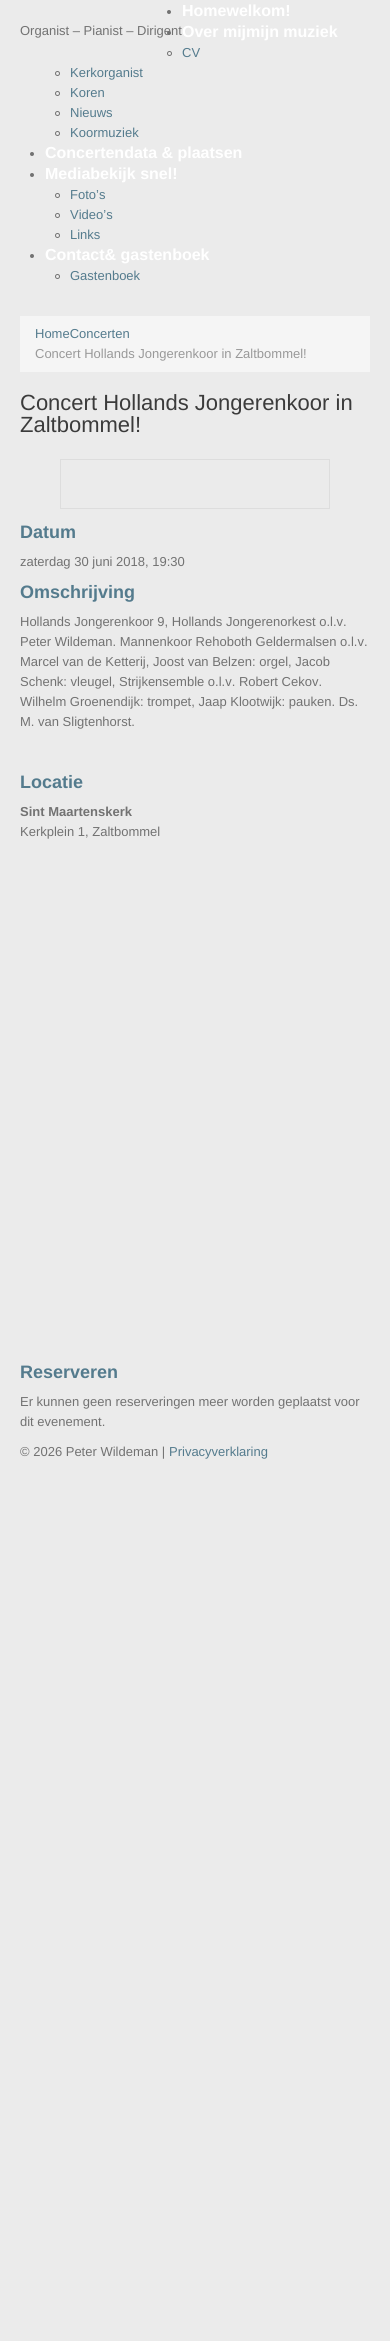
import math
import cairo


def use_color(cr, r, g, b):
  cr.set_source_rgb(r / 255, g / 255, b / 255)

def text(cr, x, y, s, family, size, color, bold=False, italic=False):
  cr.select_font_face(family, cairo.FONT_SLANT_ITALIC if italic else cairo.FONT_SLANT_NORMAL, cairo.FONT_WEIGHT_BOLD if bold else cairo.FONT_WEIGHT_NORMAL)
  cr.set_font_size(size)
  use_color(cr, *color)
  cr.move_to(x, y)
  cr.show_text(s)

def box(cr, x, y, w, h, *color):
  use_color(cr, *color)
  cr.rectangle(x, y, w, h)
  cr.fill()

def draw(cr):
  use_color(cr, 235, 235, 235)
  cr.paint()
  use_color(cr, 114, 114, 114)
  cr.arc(169, 12, 2, 0, 2 * math.pi)
  cr.fill()
  cr.arc(169, 33, 2, 0, 2 * math.pi)
  cr.fill()
  cr.arc(169.5, 53.5, 2, 0, 2 * math.pi)
  cr.set_line_width(1)
  cr.stroke()
  cr.arc(57.5, 73.5, 2, 0, 2 * math.pi)
  cr.stroke()
  cr.arc(57.5, 93.5, 2, 0, 2 * math.pi)
  cr.stroke()
  cr.arc(57.5, 113.5, 2, 0, 2 * math.pi)
  cr.stroke()
  cr.arc(57.5, 133.5, 2, 0, 2 * math.pi)
  cr.stroke()
  cr.arc(32, 154, 2, 0, 2 * math.pi)
  cr.fill()
  cr.arc(32, 175, 2, 0, 2 * math.pi)
  cr.fill()
  cr.arc(57.5, 195.5, 2, 0, 2 * math.pi)
  cr.stroke()
  cr.arc(57.5, 215.5, 2, 0, 2 * math.pi)
  cr.stroke()
  cr.arc(57.5, 235.5, 2, 0, 2 * math.pi)
  cr.stroke()
  cr.arc(32, 256, 2, 0, 2 * math.pi)
  cr.fill()
  cr.arc(57.5, 276.5, 2, 0, 2 * math.pi)
  cr.stroke()
  box(cr, 20, 316, 350, 56, 245, 245, 245)
  cr.rectangle(60.5, 459.5, 269, 49)
  use_color(cr, 221, 221, 221)
  cr.stroke()
  text(cr, 182, 16, "Homewelkom!", "Liberation Sans", 16, (255, 255, 255), bold=True)
  text(cr, 182, 37, "Over mijmijn muziek", "Liberation Sans", 16, (255, 255, 255), bold=True)
  text(cr, 182, 57, "CV", "Liberation Sans", 13, (84, 123, 141))
  text(cr, 70, 77, "Kerkorganist", "Liberation Sans", 13, (84, 123, 141))
  text(cr, 70, 97, "Koren", "Liberation Sans", 13, (84, 123, 141))
  text(cr, 70, 117, "Nieuws", "Liberation Sans", 13, (84, 123, 141))
  text(cr, 70, 137, "Koormuziek", "Liberation Sans", 13, (84, 123, 141))
  text(cr, 45, 158, "Concertendata & plaatsen", "Liberation Sans", 16, (255, 255, 255), bold=True)
  text(cr, 45, 179, "Mediabekijk snel!", "Liberation Sans", 16, (255, 255, 255), bold=True)
  text(cr, 70, 199, "Foto’s", "Liberation Sans", 13, (84, 123, 141))
  text(cr, 70, 219, "Video’s", "Liberation Sans", 13, (84, 123, 141))
  text(cr, 70, 239, "Links", "Liberation Sans", 13, (84, 123, 141))
  text(cr, 45, 260, "Contact& gastenboek", "Liberation Sans", 16, (255, 255, 255), bold=True)
  text(cr, 70, 280, "Gastenboek", "Liberation Sans", 13, (84, 123, 141))
  text(cr, 20, 35, "Organist – Pianist – Dirigent", "Liberation Sans", 13, (114, 114, 114))
  text(cr, 35, 338, "HomeConcerten", "Liberation Sans", 13, (84, 123, 141))
  text(cr, 35, 358, "Concert Hollands Jongerenkoor in Zaltbommel!", "Liberation Sans", 13, (153, 153, 153))
  text(cr, 20, 410, "Concert Hollands Jongerenkoor in", "Liberation Sans", 22, (59, 59, 59))
  text(cr, 20, 432, "Zaltbommel!", "Liberation Sans", 22, (59, 59, 59))
  text(cr, 20, 538, "Datum", "Liberation Sans", 18, (84, 123, 141), bold=True)
  text(cr, 20, 566, "zaterdag 30 juni 2018, 19:30", "Liberation Sans", 13, (114, 114, 114))
  text(cr, 20, 598, "Omschrijving", "Liberation Sans", 18, (84, 123, 141), bold=True)
  text(cr, 20, 626, "Hollands Jongerenkoor 9, Hollands Jongerenorkest o.l.v.", "Liberation Sans", 13, (114, 114, 114))
  text(cr, 20, 646, "Peter Wildeman. Mannenkoor Rehoboth Geldermalsen o.l.v.", "Liberation Sans", 13, (114, 114, 114))
  text(cr, 20, 666, "Marcel van de Ketterij, Joost van Belzen: orgel, Jacob", "Liberation Sans", 13, (114, 114, 114))
  text(cr, 20, 686, "Schenk: vleugel, Strijkensemble o.l.v. Robert Cekov.", "Liberation Sans", 13, (114, 114, 114))
  text(cr, 20, 706, "Wilhelm Groenendijk: trompet, Jaap Klootwijk: pauken. Ds.", "Liberation Sans", 13, (114, 114, 114))
  text(cr, 20, 726, "M. van Sligtenhorst.", "Liberation Sans", 13, (114, 114, 114))
  text(cr, 20, 788, "Locatie", "Liberation Sans", 18, (84, 123, 141), bold=True)
  text(cr, 20, 816, "Sint Maartenskerk", "Liberation Sans", 13, (114, 114, 114), bold=True)
  text(cr, 20, 836, "Kerkplein 1, Zaltbommel", "Liberation Sans", 13, (114, 114, 114))
  text(cr, 20, 1378, "Reserveren", "Liberation Sans", 18, (84, 123, 141), bold=True)
  text(cr, 20, 1406, "Er kunnen geen reserveringen meer worden geplaatst voor", "Liberation Sans", 13, (114, 114, 114))
  text(cr, 20, 1426, "dit evenement.", "Liberation Sans", 13, (114, 114, 114))
  text(cr, 20, 1456, "© 2026 Peter Wildeman |", "Liberation Sans", 13, (114, 114, 114))
  text(cr, 169, 1456, "Privacyverklaring", "Liberation Sans", 13, (84, 123, 141))


surface = cairo.ImageSurface(cairo.FORMAT_RGB24, 390, 2341)
cr = cairo.Context(surface)
options = cairo.FontOptions()
options.set_hint_metrics(cairo.HINT_METRICS_OFF)
options.set_hint_style(cairo.HINT_STYLE_NONE)
cr.set_font_options(options)
cr.set_miter_limit(4)
draw(cr)
surface.write_to_png("out.png")
